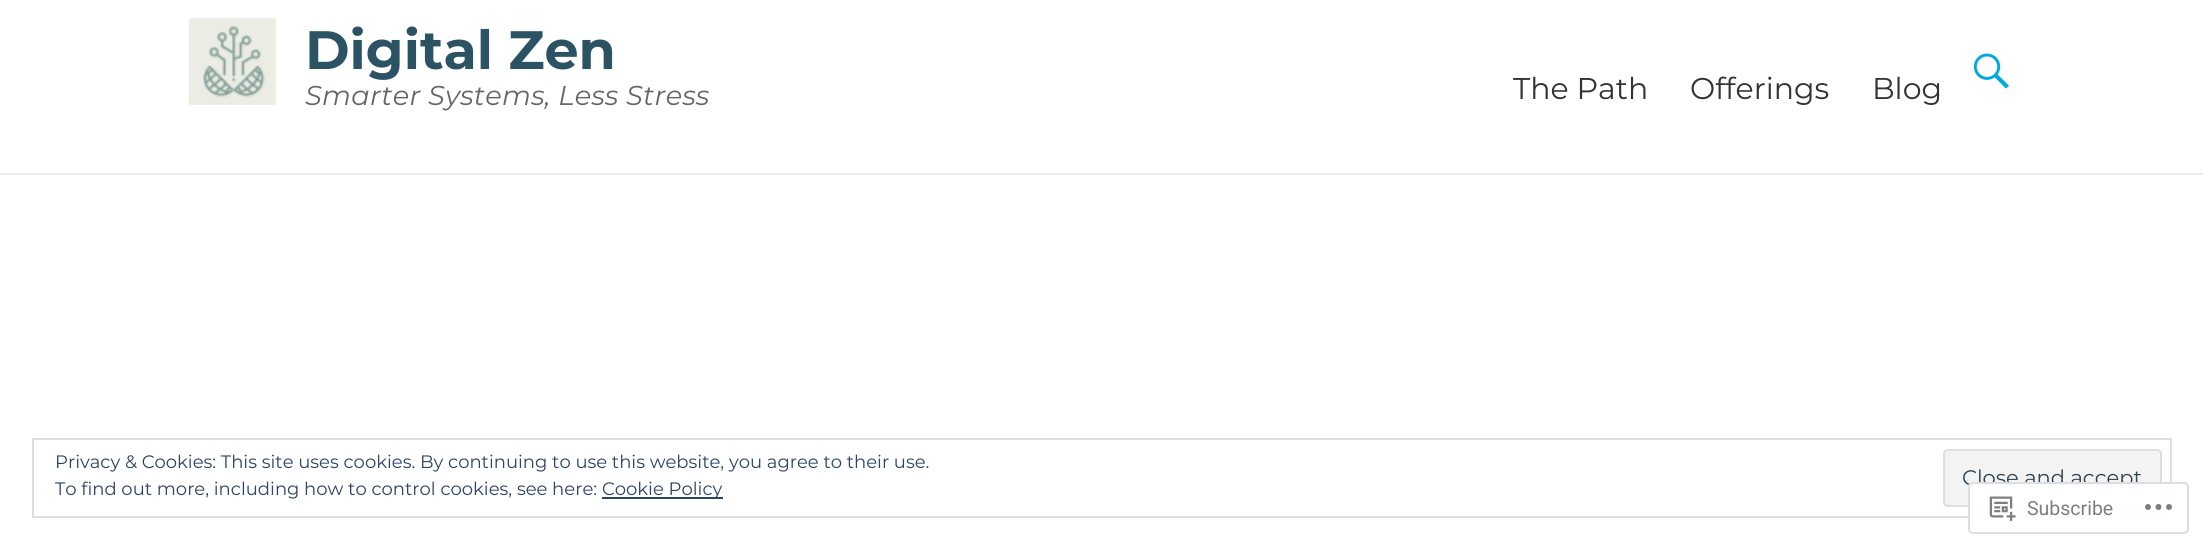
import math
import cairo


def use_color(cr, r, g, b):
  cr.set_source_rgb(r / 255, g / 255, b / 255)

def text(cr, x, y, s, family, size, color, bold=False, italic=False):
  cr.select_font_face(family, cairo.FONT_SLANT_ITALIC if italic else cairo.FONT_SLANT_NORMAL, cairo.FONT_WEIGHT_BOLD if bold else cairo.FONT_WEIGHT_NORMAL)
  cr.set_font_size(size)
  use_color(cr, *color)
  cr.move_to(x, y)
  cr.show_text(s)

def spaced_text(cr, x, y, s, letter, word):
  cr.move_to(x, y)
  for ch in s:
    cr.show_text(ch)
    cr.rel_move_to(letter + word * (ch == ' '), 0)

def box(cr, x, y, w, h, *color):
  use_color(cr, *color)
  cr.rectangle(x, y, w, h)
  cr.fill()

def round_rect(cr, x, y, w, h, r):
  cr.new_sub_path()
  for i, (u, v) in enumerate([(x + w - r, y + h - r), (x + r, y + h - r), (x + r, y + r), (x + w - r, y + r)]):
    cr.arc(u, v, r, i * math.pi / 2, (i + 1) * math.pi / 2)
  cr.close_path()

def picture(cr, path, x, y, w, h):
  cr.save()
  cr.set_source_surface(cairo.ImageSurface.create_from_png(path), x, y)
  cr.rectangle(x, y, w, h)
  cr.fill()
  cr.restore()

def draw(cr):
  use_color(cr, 255, 255, 255)
  cr.paint()
  box(cr, 0, 173, 2203, 2, 234, 234, 234)
  picture(cr, "img_01.png", 188, 17, 89, 88)
  picture(cr, "img_02.png", 1973, 53, 36, 36)
  cr.rectangle(33, 439, 2138, 78)
  use_color(cr, 222, 222, 222)
  cr.stroke()
  box(cr, 602, 497, 121, 2, 46, 68, 103)
  use_color(cr, 243, 243, 243)
  round_rect(cr, 1944, 450, 217, 56, 4)
  cr.fill_preserve()
  use_color(cr, 222, 222, 222)
  cr.stroke()
  text(cr, 305, 69, "Digital Zen", "Montserrat", 54, (44, 83, 100), bold=True)
  cr.select_font_face("Montserrat", cairo.FONT_SLANT_ITALIC)
  cr.set_font_size(27.25)
  use_color(cr, 102, 102, 102)
  spaced_text(cr, 305, 105, "Smarter Systems, Less Stress", 0.3, 0)
  text(cr, 1513, 99, "The Path", "Montserrat", 30, (51, 51, 51))
  text(cr, 1690, 99, "Offerings", "Montserrat", 30, (51, 51, 51))
  text(cr, 1872, 99, "Blog", "Montserrat", 30, (51, 51, 51))
  text(cr, 55, 468, "Privacy & Cookies: This site uses cookies. By continuing to use this website, you agree to their use.", "Montserrat", 18, (46, 68, 103))
  text(cr, 55, 495, "To find out more, including how to control cookies, see here:", "Montserrat", 18, (46, 68, 103))
  text(cr, 602, 495, "Cookie Policy", "Montserrat", 18, (46, 68, 103))
  text(cr, 1962, 485, "Close and accept", "Montserrat", 21, (46, 68, 83))
  cr.set_source_rgba(1, 1, 1, 0.98)
  round_rect(cr, 1968, 482, 221, 52, 5)
  cr.fill()
  round_rect(cr, 1969, 483, 219, 50, 4)
  cr.set_source_rgba(0.863, 0.863, 0.871, 0.98)
  cr.stroke()
  picture(cr, "img_03.png", 1989, 496, 27, 25)
  text(cr, 2027, 515, "Subscribe", "Roboto", 19.5, (123, 127, 132))
  picture(cr, "img_04.png", 2145, 504, 27, 6)


surface = cairo.ImageSurface(cairo.FORMAT_RGB24, 2203, 548)
cr = cairo.Context(surface)
options = cairo.FontOptions()
options.set_hint_metrics(cairo.HINT_METRICS_OFF)
options.set_hint_style(cairo.HINT_STYLE_NONE)
cr.set_font_options(options)
cr.set_miter_limit(4)
draw(cr)
surface.write_to_png("out.png")
